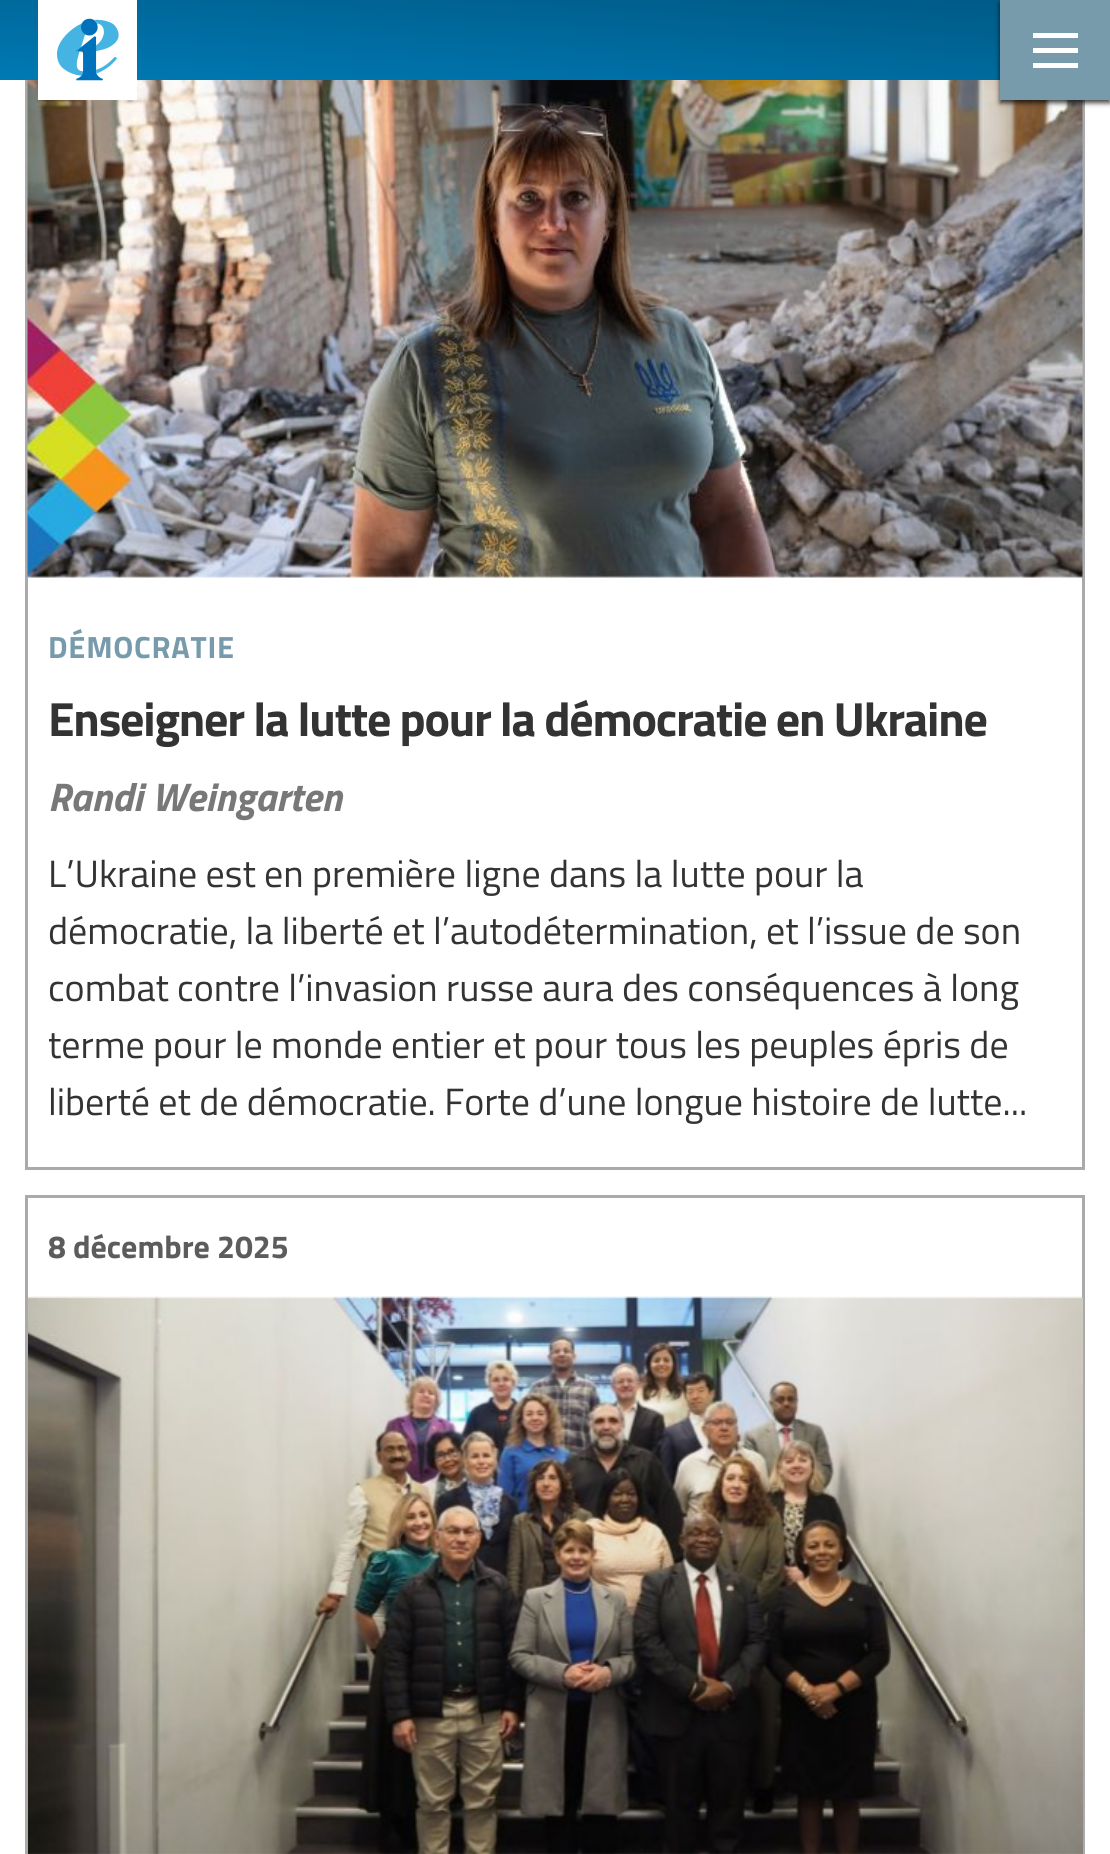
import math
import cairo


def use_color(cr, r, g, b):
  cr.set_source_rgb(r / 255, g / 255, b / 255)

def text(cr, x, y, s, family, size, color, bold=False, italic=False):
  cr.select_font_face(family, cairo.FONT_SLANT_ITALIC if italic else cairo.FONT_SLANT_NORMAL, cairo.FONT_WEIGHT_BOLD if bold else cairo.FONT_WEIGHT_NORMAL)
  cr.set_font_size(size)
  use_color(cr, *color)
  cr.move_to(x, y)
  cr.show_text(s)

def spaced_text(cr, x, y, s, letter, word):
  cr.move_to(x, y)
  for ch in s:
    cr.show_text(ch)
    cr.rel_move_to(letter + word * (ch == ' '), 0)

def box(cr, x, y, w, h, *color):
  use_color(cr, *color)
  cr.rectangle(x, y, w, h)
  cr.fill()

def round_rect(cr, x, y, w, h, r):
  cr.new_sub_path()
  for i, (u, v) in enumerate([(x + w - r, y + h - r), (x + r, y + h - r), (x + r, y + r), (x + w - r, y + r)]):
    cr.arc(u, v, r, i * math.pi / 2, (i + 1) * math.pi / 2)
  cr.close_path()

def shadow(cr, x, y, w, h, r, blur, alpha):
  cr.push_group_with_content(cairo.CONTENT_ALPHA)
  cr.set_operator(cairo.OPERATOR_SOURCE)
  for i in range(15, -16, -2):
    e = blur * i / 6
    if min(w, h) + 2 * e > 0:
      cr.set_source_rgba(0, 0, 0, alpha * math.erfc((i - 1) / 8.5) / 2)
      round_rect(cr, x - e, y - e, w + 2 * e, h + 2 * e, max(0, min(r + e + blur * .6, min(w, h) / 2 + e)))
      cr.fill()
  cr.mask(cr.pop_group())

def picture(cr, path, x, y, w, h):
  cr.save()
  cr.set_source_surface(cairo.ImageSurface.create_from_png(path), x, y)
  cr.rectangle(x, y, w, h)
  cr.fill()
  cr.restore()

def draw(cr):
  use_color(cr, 255, 255, 255)
  cr.paint()
  cr.rectangle(26.5, -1.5, 1057, 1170)
  use_color(cr, 170, 170, 170)
  cr.set_line_width(3)
  cr.stroke()
  gradient = cairo.LinearGradient(549, 120, 561, -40)
  gradient.add_color_stop_rgba(0, 0, 0.475, 0.706, 1)
  gradient.add_color_stop_rgba(0.25, 0, 0.443, 0.659, 1)
  gradient.add_color_stop_rgba(0.5, 0, 0.412, 0.612, 1)
  gradient.add_color_stop_rgba(0.75, 0, 0.38, 0.565, 1)
  gradient.add_color_stop_rgba(1, 0, 0.349, 0.522, 1)
  cr.set_source(gradient)
  cr.rectangle(0, 0, 1000, 80)
  cr.fill()
  picture(cr, "img_02.png", 27, 80, 1056, 498)
  picture(cr, "img_01.png", 38, 0, 99, 100)
  use_color(cr, 0, 0, 0)
  shadow(cr, 1000, 3, 110, 100, 0, 2.5, 0.75)
  box(cr, 1000, 0, 110, 100, 120, 155, 172)
  box(cr, 1033, 33, 45, 5, 255, 255, 255)
  box(cr, 1033, 48, 45, 5, 255, 255, 255)
  box(cr, 1033, 63, 45, 5, 255, 255, 255)
  cr.rectangle(26.5, 1196.5, 1057, 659)
  use_color(cr, 170, 170, 170)
  cr.stroke()
  picture(cr, "img_03.png", 28, 1296, 1055, 558)
  cr.select_font_face("Titillium Web", cairo.FONT_SLANT_NORMAL, cairo.FONT_WEIGHT_BOLD)
  cr.set_font_size(30.75)
  use_color(cr, 120, 155, 172)
  spaced_text(cr, 48, 658, "DÉMOCRATIE", 0.75, 0)
  cr.set_font_size(48)
  use_color(cr, 51, 51, 51)
  spaced_text(cr, 48, 736, "Enseigner la lutte pour la démocratie en Ukraine", -1.25, 0)
  text(cr, 48, 811, "Randi Weingarten", "Titillium Web", 40, (120, 120, 120), bold=True, italic=True)
  text(cr, 48, 887, "L’Ukraine est en première ligne dans la lutte pour la", "Titillium Web", 38, (51, 51, 51))
  text(cr, 48, 944, "démocratie, la liberté et l’autodétermination, et l’issue de son", "Titillium Web", 38, (51, 51, 51))
  text(cr, 48, 1001, "combat contre l’invasion russe aura des conséquences à long", "Titillium Web", 38, (51, 51, 51))
  text(cr, 48, 1058, "terme pour le monde entier et pour tous les peuples épris de", "Titillium Web", 38, (51, 51, 51))
  text(cr, 48, 1115, "liberté et de démocratie. Forte d’une longue histoire de lutte...", "Titillium Web", 38, (51, 51, 51))
  text(cr, 48, 1258, "8 décembre 2025", "Titillium Web", 32, (92, 92, 92), bold=True)


surface = cairo.ImageSurface(cairo.FORMAT_RGB24, 1110, 1854)
cr = cairo.Context(surface)
options = cairo.FontOptions()
options.set_hint_metrics(cairo.HINT_METRICS_OFF)
options.set_hint_style(cairo.HINT_STYLE_NONE)
cr.set_font_options(options)
cr.set_miter_limit(4)
draw(cr)
surface.write_to_png("out.png")
